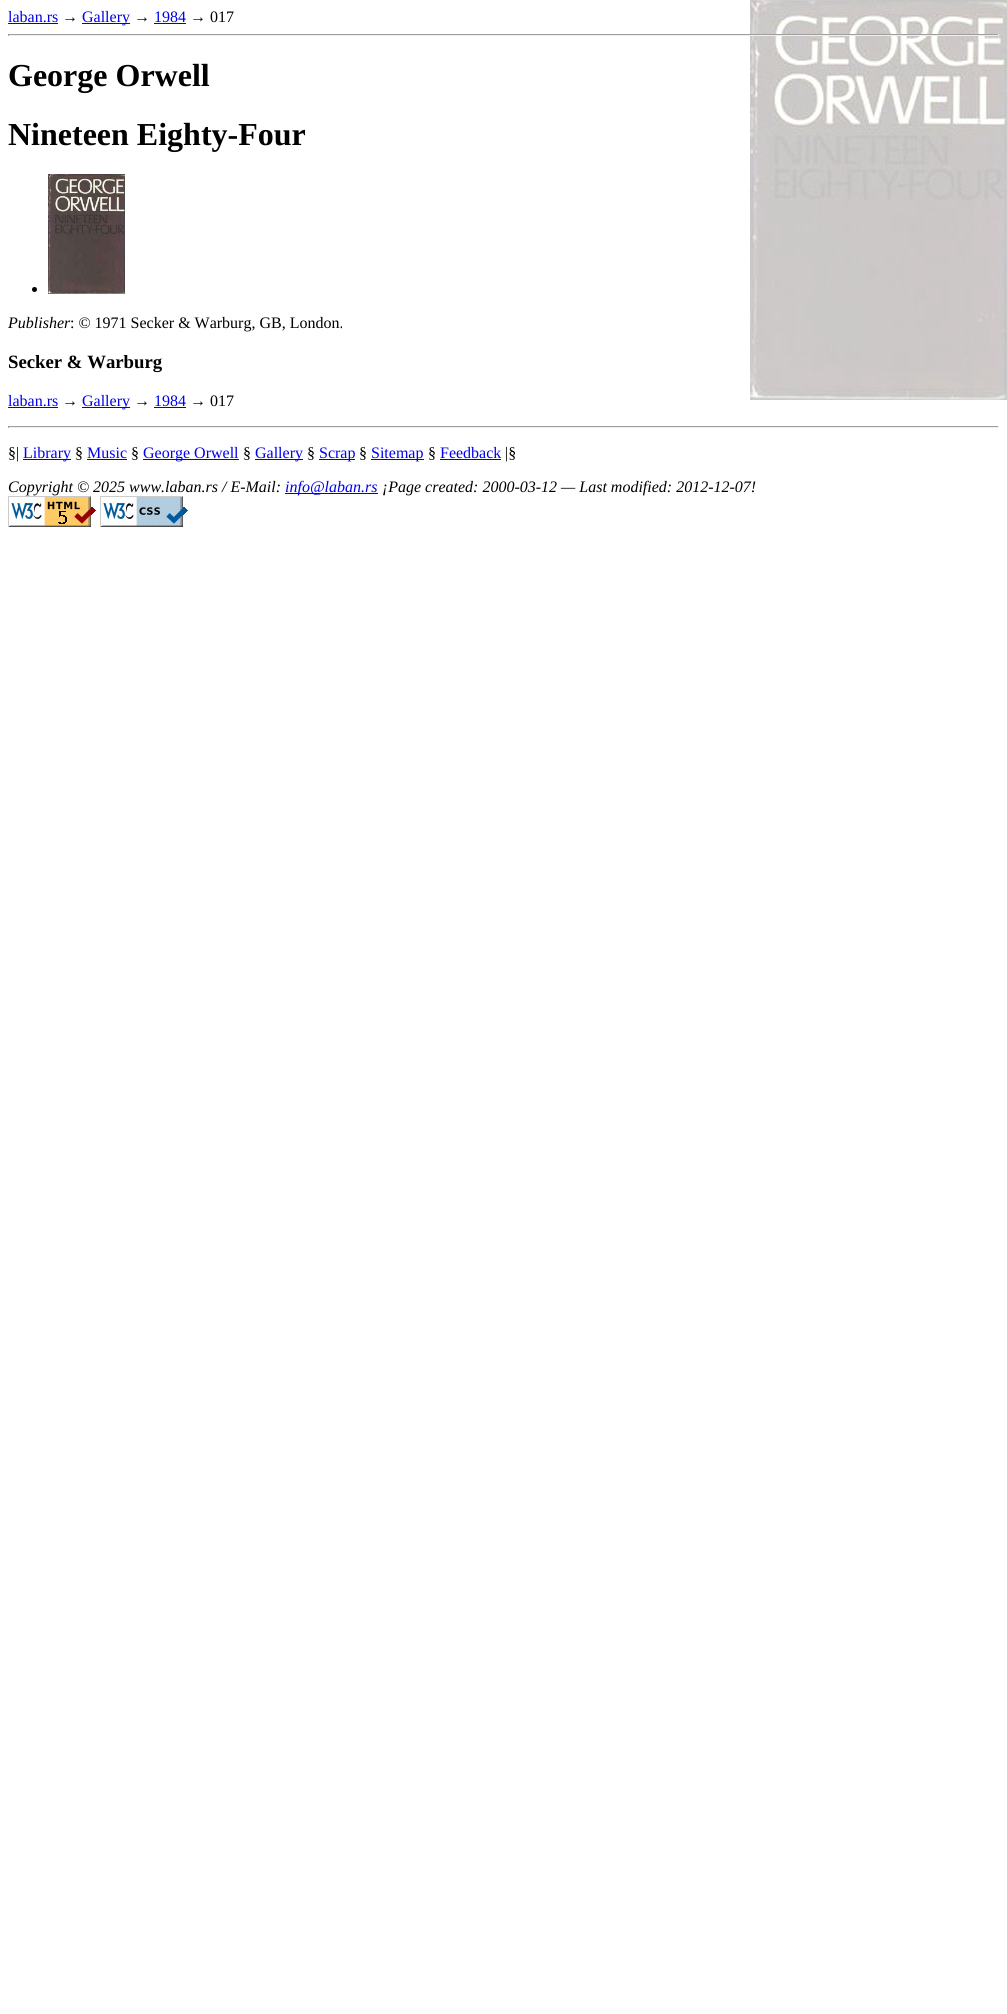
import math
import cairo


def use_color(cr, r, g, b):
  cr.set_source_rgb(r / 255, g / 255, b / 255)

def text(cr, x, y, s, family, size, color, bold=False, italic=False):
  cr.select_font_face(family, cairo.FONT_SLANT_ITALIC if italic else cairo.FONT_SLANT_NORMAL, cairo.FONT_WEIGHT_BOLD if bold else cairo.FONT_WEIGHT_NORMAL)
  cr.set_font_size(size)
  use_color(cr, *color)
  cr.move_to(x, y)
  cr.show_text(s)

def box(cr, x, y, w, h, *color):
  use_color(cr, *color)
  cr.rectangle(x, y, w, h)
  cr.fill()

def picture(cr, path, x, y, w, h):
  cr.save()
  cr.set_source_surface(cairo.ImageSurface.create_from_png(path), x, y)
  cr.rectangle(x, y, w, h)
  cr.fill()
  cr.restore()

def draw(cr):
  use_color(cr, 255, 255, 255)
  cr.paint()
  box(cr, 8, 23, 50, 1, 0, 0, 238)
  box(cr, 82, 23, 48, 1, 0, 0, 238)
  box(cr, 154, 23, 32, 1, 0, 0, 238)
  picture(cr, "img_02.png", 750, 0, 257, 400)
  box(cr, 8, 34, 991, 1, 159, 159, 159)
  box(cr, 998, 34, 1, 2, 238, 238, 238)
  box(cr, 8, 35, 991, 1, 238, 238, 238)
  box(cr, 8, 34, 1, 2, 159, 159, 159)
  use_color(cr, 0, 0, 0)
  cr.arc(34.5, 289.5, 2.5, 0, 2 * math.pi)
  cr.fill()
  picture(cr, "img_01.png", 48, 174, 77, 120)
  box(cr, 8, 407, 50, 1, 0, 0, 238)
  box(cr, 82, 407, 48, 1, 0, 0, 238)
  box(cr, 154, 407, 32, 1, 0, 0, 238)
  box(cr, 8, 426, 991, 1, 159, 159, 159)
  box(cr, 998, 426, 1, 2, 238, 238, 238)
  box(cr, 8, 427, 991, 1, 238, 238, 238)
  box(cr, 8, 426, 1, 2, 159, 159, 159)
  box(cr, 23, 459, 48, 1, 0, 0, 238)
  box(cr, 87, 459, 40, 1, 0, 0, 238)
  box(cr, 143, 459, 96, 1, 0, 0, 238)
  box(cr, 255, 459, 48, 1, 0, 0, 238)
  box(cr, 319, 459, 36, 1, 0, 0, 238)
  box(cr, 371, 459, 53, 1, 0, 0, 238)
  box(cr, 440, 459, 61, 1, 0, 0, 238)
  box(cr, 285, 493, 93, 1, 0, 0, 238)
  picture(cr, "img_03.png", 8, 496, 88, 31)
  picture(cr, "img_04.png", 100, 496, 88, 31)
  text(cr, 8, 22, "laban.rs", "Liberation Serif", 16, (0, 0, 238))
  text(cr, 62, 22, "→", "Liberation Serif", 16, (0, 0, 0))
  text(cr, 82, 22, "Gallery", "Liberation Serif", 16, (0, 0, 238))
  text(cr, 134, 22, "→", "Liberation Serif", 16, (0, 0, 0))
  text(cr, 154, 22, "1984", "Liberation Serif", 16, (0, 0, 238))
  text(cr, 190, 22, "→ 017", "Liberation Serif", 16, (0, 0, 0))
  text(cr, 8, 86, "George Orwell", "Liberation Serif", 32, (0, 0, 0), bold=True)
  text(cr, 8, 145, "Nineteen Eighty-Four", "Liberation Serif", 32, (0, 0, 0), bold=True)
  text(cr, 8, 328, "Publisher", "Liberation Serif", 16, (0, 0, 0), italic=True)
  text(cr, 70, 328, ": © 1971 Secker & Warburg, GB, London.", "Liberation Serif", 16, (0, 0, 0))
  text(cr, 8, 368, "Secker & Warburg", "Liberation Serif", 18.75, (0, 0, 0), bold=True)
  text(cr, 8, 406, "laban.rs", "Liberation Serif", 16, (0, 0, 238))
  text(cr, 62, 406, "→", "Liberation Serif", 16, (0, 0, 0))
  text(cr, 82, 406, "Gallery", "Liberation Serif", 16, (0, 0, 238))
  text(cr, 134, 406, "→", "Liberation Serif", 16, (0, 0, 0))
  text(cr, 154, 406, "1984", "Liberation Serif", 16, (0, 0, 238))
  text(cr, 190, 406, "→ 017", "Liberation Serif", 16, (0, 0, 0))
  text(cr, 8, 458, "§|", "Liberation Serif", 16, (0, 0, 0))
  text(cr, 23, 458, "Library", "Liberation Serif", 16, (0, 0, 238))
  text(cr, 75, 458, "§", "Liberation Serif", 16, (0, 0, 0))
  text(cr, 87, 458, "Music", "Liberation Serif", 16, (0, 0, 238))
  text(cr, 131, 458, "§", "Liberation Serif", 16, (0, 0, 0))
  text(cr, 143, 458, "George Orwell", "Liberation Serif", 16, (0, 0, 238))
  text(cr, 243, 458, "§", "Liberation Serif", 16, (0, 0, 0))
  text(cr, 255, 458, "Gallery", "Liberation Serif", 16, (0, 0, 238))
  text(cr, 307, 458, "§", "Liberation Serif", 16, (0, 0, 0))
  text(cr, 319, 458, "Scrap", "Liberation Serif", 16, (0, 0, 238))
  text(cr, 359, 458, "§", "Liberation Serif", 16, (0, 0, 0))
  text(cr, 371, 458, "Sitemap", "Liberation Serif", 16, (0, 0, 238))
  text(cr, 428, 458, "§", "Liberation Serif", 16, (0, 0, 0))
  text(cr, 440, 458, "Feedback", "Liberation Serif", 16, (0, 0, 238))
  text(cr, 505, 458, "|§", "Liberation Serif", 16, (0, 0, 0))
  text(cr, 8, 492, "Copyright © 2025 www.laban.rs / E-Mail:", "Liberation Serif", 16, (0, 0, 0), italic=True)
  text(cr, 285, 492, "info@laban.rs", "Liberation Serif", 16, (0, 0, 238), italic=True)
  text(cr, 382, 492, "¡Page created: 2000-03-12 — Last modified: 2012-12-07!", "Liberation Serif", 16, (0, 0, 0), italic=True)


surface = cairo.ImageSurface(cairo.FORMAT_RGB24, 1007, 2014)
cr = cairo.Context(surface)
options = cairo.FontOptions()
options.set_hint_metrics(cairo.HINT_METRICS_OFF)
options.set_hint_style(cairo.HINT_STYLE_NONE)
cr.set_font_options(options)
cr.set_miter_limit(4)
draw(cr)
surface.write_to_png("out.png")
